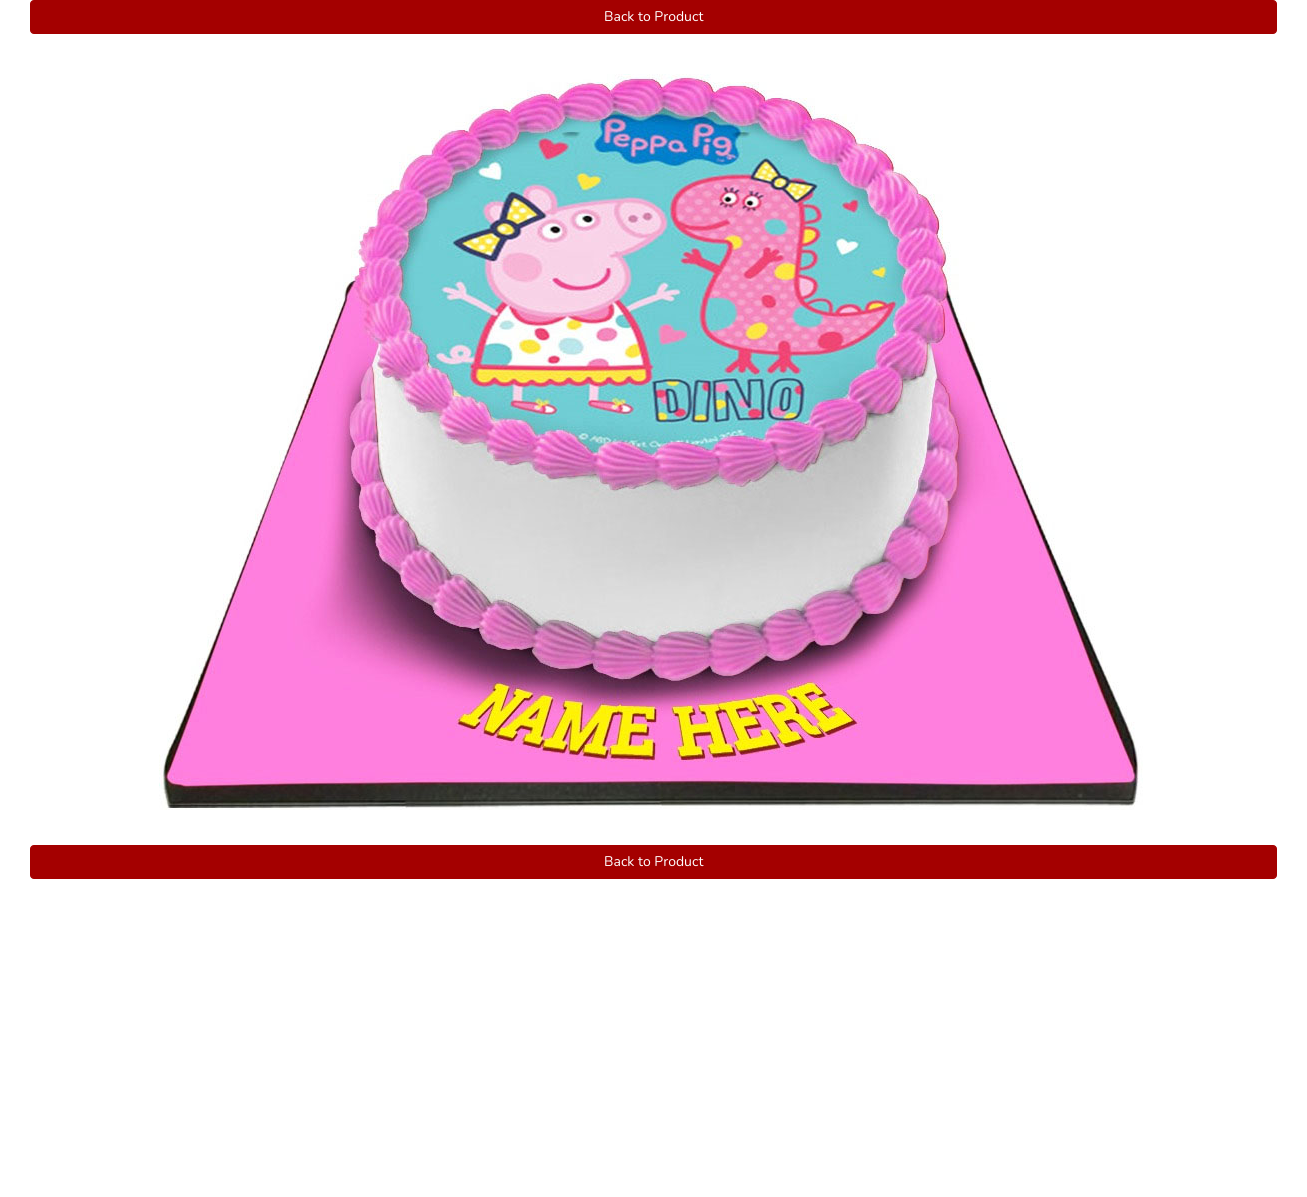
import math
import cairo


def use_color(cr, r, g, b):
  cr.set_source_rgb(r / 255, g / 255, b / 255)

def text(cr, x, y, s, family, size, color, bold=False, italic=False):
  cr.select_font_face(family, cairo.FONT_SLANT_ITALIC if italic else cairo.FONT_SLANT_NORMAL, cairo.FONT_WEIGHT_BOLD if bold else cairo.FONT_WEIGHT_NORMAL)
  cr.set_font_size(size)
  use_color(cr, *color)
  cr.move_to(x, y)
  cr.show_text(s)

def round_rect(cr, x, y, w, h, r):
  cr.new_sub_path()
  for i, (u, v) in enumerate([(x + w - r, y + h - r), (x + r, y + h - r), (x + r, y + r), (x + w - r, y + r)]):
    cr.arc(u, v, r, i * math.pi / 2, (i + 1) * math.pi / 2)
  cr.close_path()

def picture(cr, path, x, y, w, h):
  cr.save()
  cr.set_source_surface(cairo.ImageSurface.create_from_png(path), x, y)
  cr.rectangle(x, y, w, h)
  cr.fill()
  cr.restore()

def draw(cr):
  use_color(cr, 255, 255, 255)
  cr.paint()
  use_color(cr, 164, 0, 0)
  round_rect(cr, 30.5, 0.5, 1246, 33, 3.5)
  cr.fill_preserve()
  cr.set_line_width(1)
  cr.stroke()
  picture(cr, "img_01.png", 159, 74, 984, 736)
  round_rect(cr, 30.5, 845.5, 1246, 33, 3.5)
  cr.fill_preserve()
  cr.stroke()
  text(cr, 604, 21, "Back to Product", "Nunito", 14, (255, 255, 255))
  text(cr, 604, 866, "Back to Product", "Nunito", 14, (255, 255, 255))


surface = cairo.ImageSurface(cairo.FORMAT_RGB24, 1307, 1197)
cr = cairo.Context(surface)
options = cairo.FontOptions()
options.set_hint_metrics(cairo.HINT_METRICS_OFF)
options.set_hint_style(cairo.HINT_STYLE_NONE)
cr.set_font_options(options)
cr.set_miter_limit(4)
draw(cr)
surface.write_to_png("out.png")
